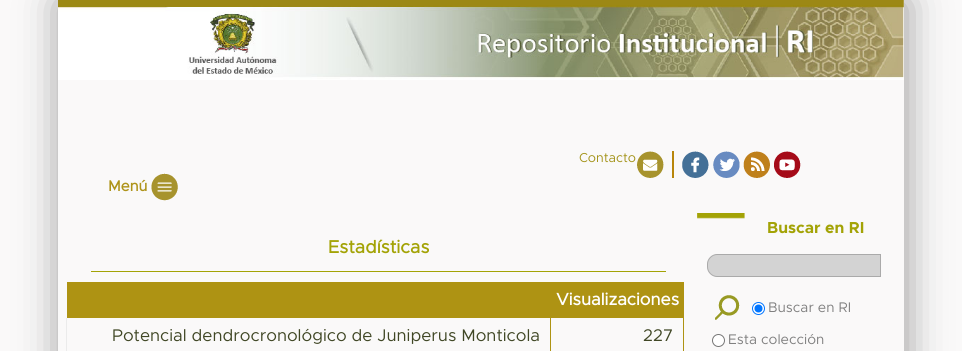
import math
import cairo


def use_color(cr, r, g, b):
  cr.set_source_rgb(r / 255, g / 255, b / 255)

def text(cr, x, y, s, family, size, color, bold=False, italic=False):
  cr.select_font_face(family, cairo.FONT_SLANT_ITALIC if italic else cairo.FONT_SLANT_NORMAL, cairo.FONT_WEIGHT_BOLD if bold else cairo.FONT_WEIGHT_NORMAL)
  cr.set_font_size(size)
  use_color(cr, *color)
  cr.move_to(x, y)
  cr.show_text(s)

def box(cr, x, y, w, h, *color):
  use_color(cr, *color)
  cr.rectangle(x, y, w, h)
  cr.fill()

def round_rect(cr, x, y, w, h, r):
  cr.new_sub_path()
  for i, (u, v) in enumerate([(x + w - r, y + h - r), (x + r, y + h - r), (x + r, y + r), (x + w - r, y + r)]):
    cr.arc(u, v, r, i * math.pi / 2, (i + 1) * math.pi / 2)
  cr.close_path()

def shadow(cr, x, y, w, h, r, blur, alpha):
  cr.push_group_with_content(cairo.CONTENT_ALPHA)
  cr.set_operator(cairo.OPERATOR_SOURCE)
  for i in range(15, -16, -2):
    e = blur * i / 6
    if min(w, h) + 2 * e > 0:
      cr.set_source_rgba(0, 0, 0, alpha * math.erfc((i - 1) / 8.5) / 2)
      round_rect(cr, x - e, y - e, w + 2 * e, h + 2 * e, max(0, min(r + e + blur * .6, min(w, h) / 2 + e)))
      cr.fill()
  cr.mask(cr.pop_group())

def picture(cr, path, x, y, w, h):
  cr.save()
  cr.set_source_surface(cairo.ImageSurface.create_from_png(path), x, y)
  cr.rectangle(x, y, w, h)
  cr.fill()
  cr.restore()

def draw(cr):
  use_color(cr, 250, 249, 249)
  cr.paint()
  cr.save()
  cr.set_fill_rule(cairo.FILL_RULE_EVEN_ODD)
  cr.new_path()
  cr.move_to(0, 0)
  cr.line_to(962, 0)
  cr.line_to(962, 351)
  cr.line_to(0, 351)
  cr.close_path()
  cr.move_to(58, 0)
  cr.line_to(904, 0)
  cr.line_to(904, 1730)
  cr.line_to(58, 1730)
  cr.close_path()
  cr.clip()
  use_color(cr, 153, 153, 153)
  shadow(cr, 60, 2, 846, 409, 0, 20, 1)
  cr.restore()
  picture(cr, "img_01.png", 58, 0, 846, 80)
  picture(cr, "img_02.png", 637, 151, 27, 27)
  box(cr, 672, 151, 2, 27, 184, 134, 11)
  picture(cr, "img_03.png", 682, 151, 27, 27)
  picture(cr, "img_04.png", 713, 151, 27, 27)
  picture(cr, "img_05.png", 743, 151, 27, 27)
  picture(cr, "img_06.png", 774, 151, 27, 27)
  picture(cr, "img_07.png", 151, 173, 27, 28)
  box(cr, 91, 271, 575, 1, 163, 163, 6)
  box(cr, 67, 282, 617, 36, 174, 147, 19)
  box(cr, 550, 318, 1, 33, 174, 147, 19)
  box(cr, 66, 318, 1, 33, 235, 235, 235)
  box(cr, 683, 318, 1, 33, 174, 147, 19)
  picture(cr, "img_08.png", 697, 213, 48, 6)
  use_color(cr, 211, 211, 211)
  cr.new_path()
  cr.move_to(717, 254.5)
  cr.line_to(880.5, 254.5)
  cr.line_to(880.5, 276.5)
  cr.line_to(717, 276.5)
  cr.curve_to(712, 276.5, 707.5, 272, 707.5, 267)
  cr.line_to(707.5, 264)
  cr.curve_to(707.5, 259, 712, 254.5, 717, 254.5)
  cr.close_path()
  cr.fill_preserve()
  use_color(cr, 170, 170, 170)
  cr.set_line_width(1)
  cr.stroke()
  picture(cr, "img_09.png", 715, 295, 25, 25)
  use_color(cr, 255, 255, 255)
  cr.arc(758.5, 308.5, 6, 0, 2 * math.pi)
  cr.fill_preserve()
  use_color(cr, 0, 117, 255)
  cr.stroke()
  cr.arc(758.5, 308.5, 4, 0, 2 * math.pi)
  cr.fill()
  use_color(cr, 255, 255, 255)
  cr.arc(718.5, 340.5, 6, 0, 2 * math.pi)
  cr.fill_preserve()
  use_color(cr, 118, 118, 118)
  cr.stroke()
  text(cr, 579, 162, "Contacto", "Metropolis", 13, (163, 147, 25))
  text(cr, 108, 191, "Menú", "Metropolis", 15, (174, 147, 25), bold=True)
  text(cr, 328, 253, "Estadísticas", "Metropolis", 18, (163, 163, 6), bold=True)
  text(cr, 556, 305, "Visualizaciones", "Metropolis", 16.95, (255, 255, 255), bold=True)
  text(cr, 112, 341, "Potencial dendrocronológico de Juniperus Monticola", "Metropolis", 16.95, (64, 71, 37))
  text(cr, 643, 341, "227", "Metropolis", 16.95, (64, 71, 37))
  text(cr, 767, 233, "Buscar en RI", "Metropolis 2", 16, (163, 163, 6), bold=True)
  text(cr, 768, 312, "Buscar en RI", "Metropolis", 14, (128, 128, 128))
  text(cr, 728, 344, "Esta colección", "Metropolis", 14, (128, 128, 128))


surface = cairo.ImageSurface(cairo.FORMAT_RGB24, 962, 351)
cr = cairo.Context(surface)
options = cairo.FontOptions()
options.set_hint_metrics(cairo.HINT_METRICS_OFF)
options.set_hint_style(cairo.HINT_STYLE_NONE)
cr.set_font_options(options)
cr.set_miter_limit(4)
draw(cr)
surface.write_to_png("out.png")
